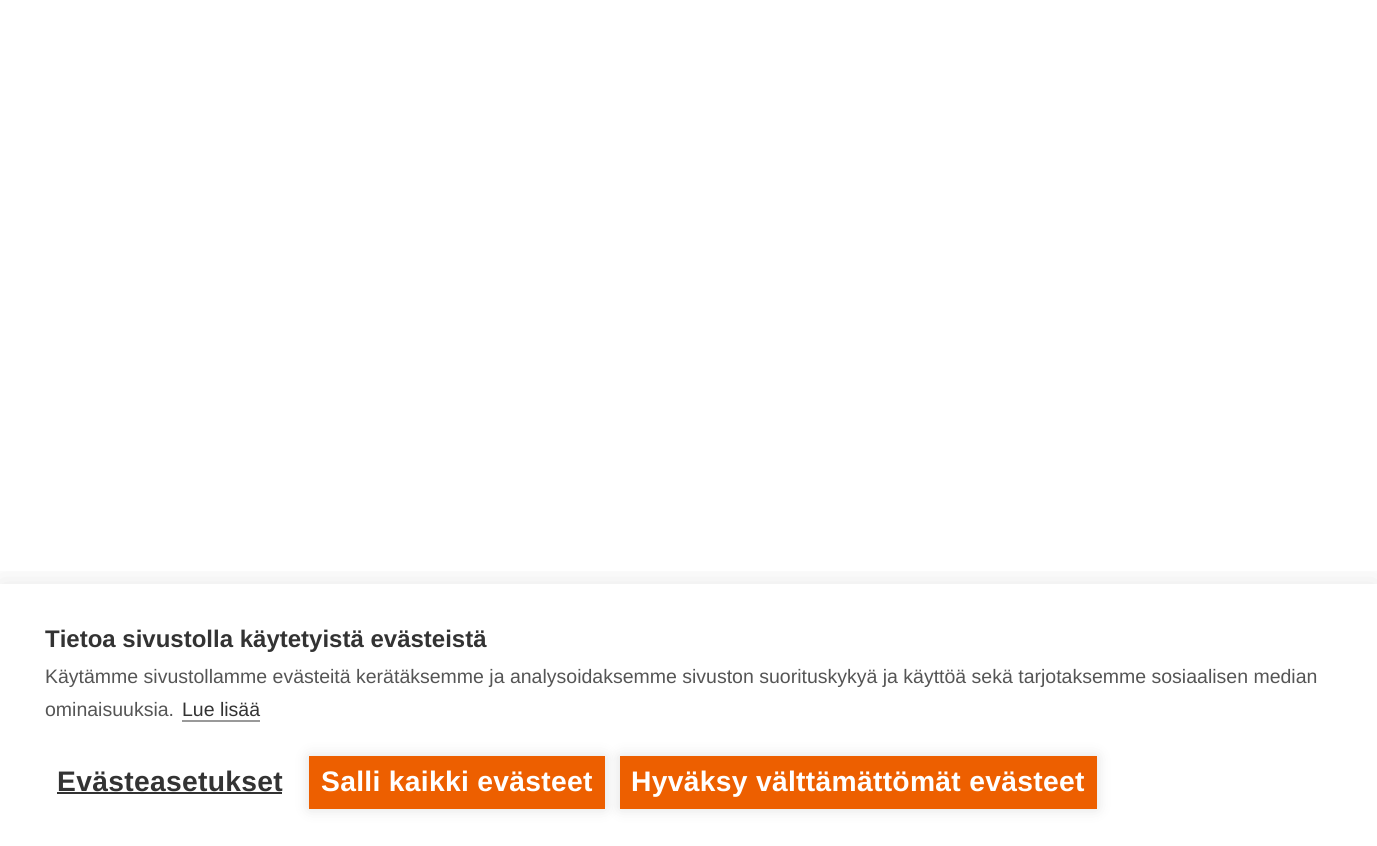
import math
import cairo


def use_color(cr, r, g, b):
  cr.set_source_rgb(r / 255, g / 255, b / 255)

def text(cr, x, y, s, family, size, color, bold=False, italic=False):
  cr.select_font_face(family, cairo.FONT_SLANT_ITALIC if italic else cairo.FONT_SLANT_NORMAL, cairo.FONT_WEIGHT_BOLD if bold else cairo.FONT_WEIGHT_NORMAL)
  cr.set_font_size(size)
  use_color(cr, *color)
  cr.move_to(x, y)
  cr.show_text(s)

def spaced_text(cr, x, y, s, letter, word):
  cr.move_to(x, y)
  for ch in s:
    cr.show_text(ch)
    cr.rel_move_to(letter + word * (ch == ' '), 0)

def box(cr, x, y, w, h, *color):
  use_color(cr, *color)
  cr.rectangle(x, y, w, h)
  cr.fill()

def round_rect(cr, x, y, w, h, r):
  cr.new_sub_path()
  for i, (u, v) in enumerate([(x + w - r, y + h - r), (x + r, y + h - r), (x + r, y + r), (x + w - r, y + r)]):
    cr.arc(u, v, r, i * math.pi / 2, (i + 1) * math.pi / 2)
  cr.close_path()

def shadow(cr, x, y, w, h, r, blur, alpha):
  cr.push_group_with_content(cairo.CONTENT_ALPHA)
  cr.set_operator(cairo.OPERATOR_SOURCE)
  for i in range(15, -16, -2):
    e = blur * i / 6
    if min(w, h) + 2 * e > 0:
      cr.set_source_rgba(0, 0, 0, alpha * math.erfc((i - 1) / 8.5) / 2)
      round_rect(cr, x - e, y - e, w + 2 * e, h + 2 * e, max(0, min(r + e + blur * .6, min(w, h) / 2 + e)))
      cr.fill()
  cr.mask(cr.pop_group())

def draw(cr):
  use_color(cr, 255, 255, 255)
  cr.paint()
  cr.save()
  cr.rectangle(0, 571, 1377, 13)
  cr.clip()
  use_color(cr, 0, 0, 0)
  shadow(cr, 0, 584, 1377, 262, 0, 15, 0.1)
  cr.restore()
  box(cr, 182, 720, 78, 2, 153, 153, 153)
  box(cr, 57, 792, 225, 2, 51, 51, 51)
  use_color(cr, 0, 0, 0)
  shadow(cr, 309, 756, 296, 53, 0, 7.5, 0.12)
  box(cr, 309, 756, 296, 53, 237, 95, 0)
  use_color(cr, 0, 0, 0)
  shadow(cr, 620, 756, 477, 53, 0, 7.5, 0.12)
  box(cr, 620, 756, 477, 53, 237, 95, 0)
  text(cr, 45, 647, "Tietoa sivustolla käytetyistä evästeistä", "Liberation Sans", 24, (51, 51, 51), bold=True)
  text(cr, 45, 683, "Käytämme sivustollamme evästeitä kerätäksemme ja analysoidaksemme sivuston suorituskykyä ja käyttöä sekä tarjotaksemme sosiaalisen median", "Liberation Sans", 19.5, (85, 85, 85))
  text(cr, 45, 716, "ominaisuuksia.", "Liberation Sans", 19.5, (85, 85, 85))
  text(cr, 182, 716, "Lue lisää", "Liberation Sans", 19.5, (51, 51, 51))
  cr.select_font_face("Liberation Sans", cairo.FONT_SLANT_NORMAL, cairo.FONT_WEIGHT_BOLD)
  cr.set_font_size(28.25)
  spaced_text(cr, 57, 791, "Evästeasetukset", 0.3, 0)
  use_color(cr, 255, 255, 255)
  spaced_text(cr, 321, 791, "Salli kaikki evästeet", 0.3, 0)
  spaced_text(cr, 631, 791, "Hyväksy välttämättömät evästeet", 0.3, 0)


surface = cairo.ImageSurface(cairo.FORMAT_RGB24, 1377, 846)
cr = cairo.Context(surface)
options = cairo.FontOptions()
options.set_hint_metrics(cairo.HINT_METRICS_OFF)
options.set_hint_style(cairo.HINT_STYLE_NONE)
cr.set_font_options(options)
cr.set_miter_limit(4)
draw(cr)
surface.write_to_png("out.png")
